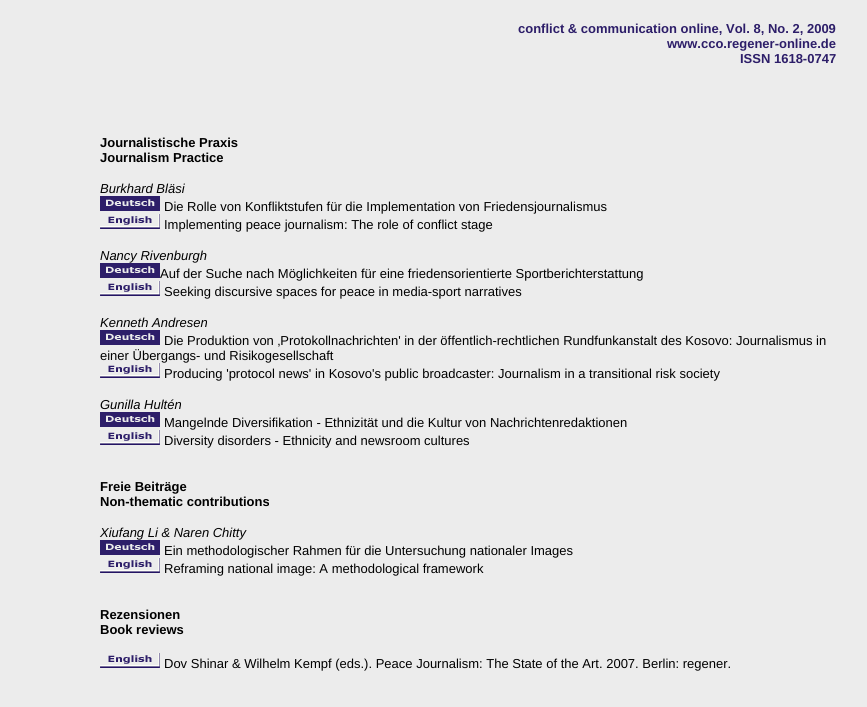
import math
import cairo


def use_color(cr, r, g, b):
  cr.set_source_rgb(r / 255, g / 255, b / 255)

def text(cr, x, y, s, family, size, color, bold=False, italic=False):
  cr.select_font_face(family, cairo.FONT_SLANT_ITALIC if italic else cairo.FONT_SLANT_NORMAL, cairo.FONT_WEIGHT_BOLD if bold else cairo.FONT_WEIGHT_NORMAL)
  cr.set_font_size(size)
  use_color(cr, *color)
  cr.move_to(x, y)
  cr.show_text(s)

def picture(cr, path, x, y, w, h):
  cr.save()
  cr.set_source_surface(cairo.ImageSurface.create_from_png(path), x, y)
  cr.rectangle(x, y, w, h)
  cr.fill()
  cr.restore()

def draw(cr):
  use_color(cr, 236, 236, 236)
  cr.paint()
  picture(cr, "img_01.png", 100, 196, 60, 15)
  picture(cr, "img_02.png", 100, 214, 60, 15)
  picture(cr, "img_01.png", 100, 263, 60, 15)
  picture(cr, "img_02.png", 100, 281, 60, 15)
  picture(cr, "img_01.png", 100, 330, 60, 15)
  picture(cr, "img_02.png", 100, 363, 60, 15)
  picture(cr, "img_01.png", 100, 412, 60, 15)
  picture(cr, "img_02.png", 100, 430, 60, 15)
  picture(cr, "img_01.png", 100, 540, 60, 15)
  picture(cr, "img_02.png", 100, 558, 60, 15)
  picture(cr, "img_02.png", 100, 653, 60, 15)
  text(cr, 518, 33, "conflict & communication online, Vol. 8, No. 2, 2009", "Liberation Sans", 13, (45, 30, 105), bold=True)
  text(cr, 667, 48, "www.cco.regener-online.de", "Liberation Sans", 13, (45, 30, 105), bold=True)
  text(cr, 740, 63, "ISSN 1618-0747", "Liberation Sans", 13, (45, 30, 105), bold=True)
  text(cr, 100, 147, "Journalistische Praxis", "Liberation Sans", 13, (0, 0, 0), bold=True)
  text(cr, 100, 162, "Journalism Practice", "Liberation Sans", 13, (0, 0, 0), bold=True)
  text(cr, 100, 193, "Burkhard Bläsi", "Liberation Sans", 13, (0, 0, 0), italic=True)
  text(cr, 164, 211, "Die Rolle von Konfliktstufen für die Implementation von Friedensjournalismus", "Liberation Sans", 13, (0, 0, 0))
  text(cr, 164, 229, "Implementing peace journalism: The role of conflict stage", "Liberation Sans", 13, (0, 0, 0))
  text(cr, 100, 260, "Nancy Rivenburgh", "Liberation Sans", 13, (0, 0, 0), italic=True)
  text(cr, 160, 278, "Auf der Suche nach Möglichkeiten für eine friedensorientierte Sportberichterstattung", "Liberation Sans", 13, (0, 0, 0))
  text(cr, 164, 296, "Seeking discursive spaces for peace in media-sport narratives", "Liberation Sans", 13, (0, 0, 0))
  text(cr, 100, 327, "Kenneth Andresen", "Liberation Sans", 13, (0, 0, 0), italic=True)
  text(cr, 164, 345, "Die Produktion von ‚Protokollnachrichten' in der öffentlich-rechtlichen Rundfunkanstalt des Kosovo: Journalismus in", "Liberation Sans", 13, (0, 0, 0))
  text(cr, 100, 360, "einer Übergangs- und Risikogesellschaft", "Liberation Sans", 13, (0, 0, 0))
  text(cr, 164, 378, "Producing 'protocol news' in Kosovo's public broadcaster: Journalism in a transitional risk society", "Liberation Sans", 13, (0, 0, 0))
  text(cr, 100, 409, "Gunilla Hultén", "Liberation Sans", 13, (0, 0, 0), italic=True)
  text(cr, 164, 427, "Mangelnde Diversifikation - Ethnizität und die Kultur von Nachrichtenredaktionen", "Liberation Sans", 13, (0, 0, 0))
  text(cr, 164, 445, "Diversity disorders - Ethnicity and newsroom cultures", "Liberation Sans", 13, (0, 0, 0))
  text(cr, 100, 491, "Freie Beiträge", "Liberation Sans", 13, (0, 0, 0), bold=True)
  text(cr, 100, 506, "Non-thematic contributions", "Liberation Sans", 13, (0, 0, 0), bold=True)
  text(cr, 100, 537, "Xiufang Li & Naren Chitty", "Liberation Sans", 13, (0, 0, 0), italic=True)
  text(cr, 164, 555, "Ein methodologischer Rahmen für die Untersuchung nationaler Images", "Liberation Sans", 13, (0, 0, 0))
  text(cr, 164, 573, "Reframing national image: A methodological framework", "Liberation Sans", 13, (0, 0, 0))
  text(cr, 100, 619, "Rezensionen", "Liberation Sans", 13, (0, 0, 0), bold=True)
  text(cr, 100, 634, "Book reviews", "Liberation Sans", 13, (0, 0, 0), bold=True)
  text(cr, 164, 668, "Dov Shinar & Wilhelm Kempf (eds.). Peace Journalism: The State of the Art. 2007. Berlin: regener.", "Liberation Sans", 13, (0, 0, 0))


surface = cairo.ImageSurface(cairo.FORMAT_RGB24, 867, 707)
cr = cairo.Context(surface)
options = cairo.FontOptions()
options.set_hint_metrics(cairo.HINT_METRICS_OFF)
options.set_hint_style(cairo.HINT_STYLE_NONE)
cr.set_font_options(options)
cr.set_miter_limit(4)
draw(cr)
surface.write_to_png("out.png")
